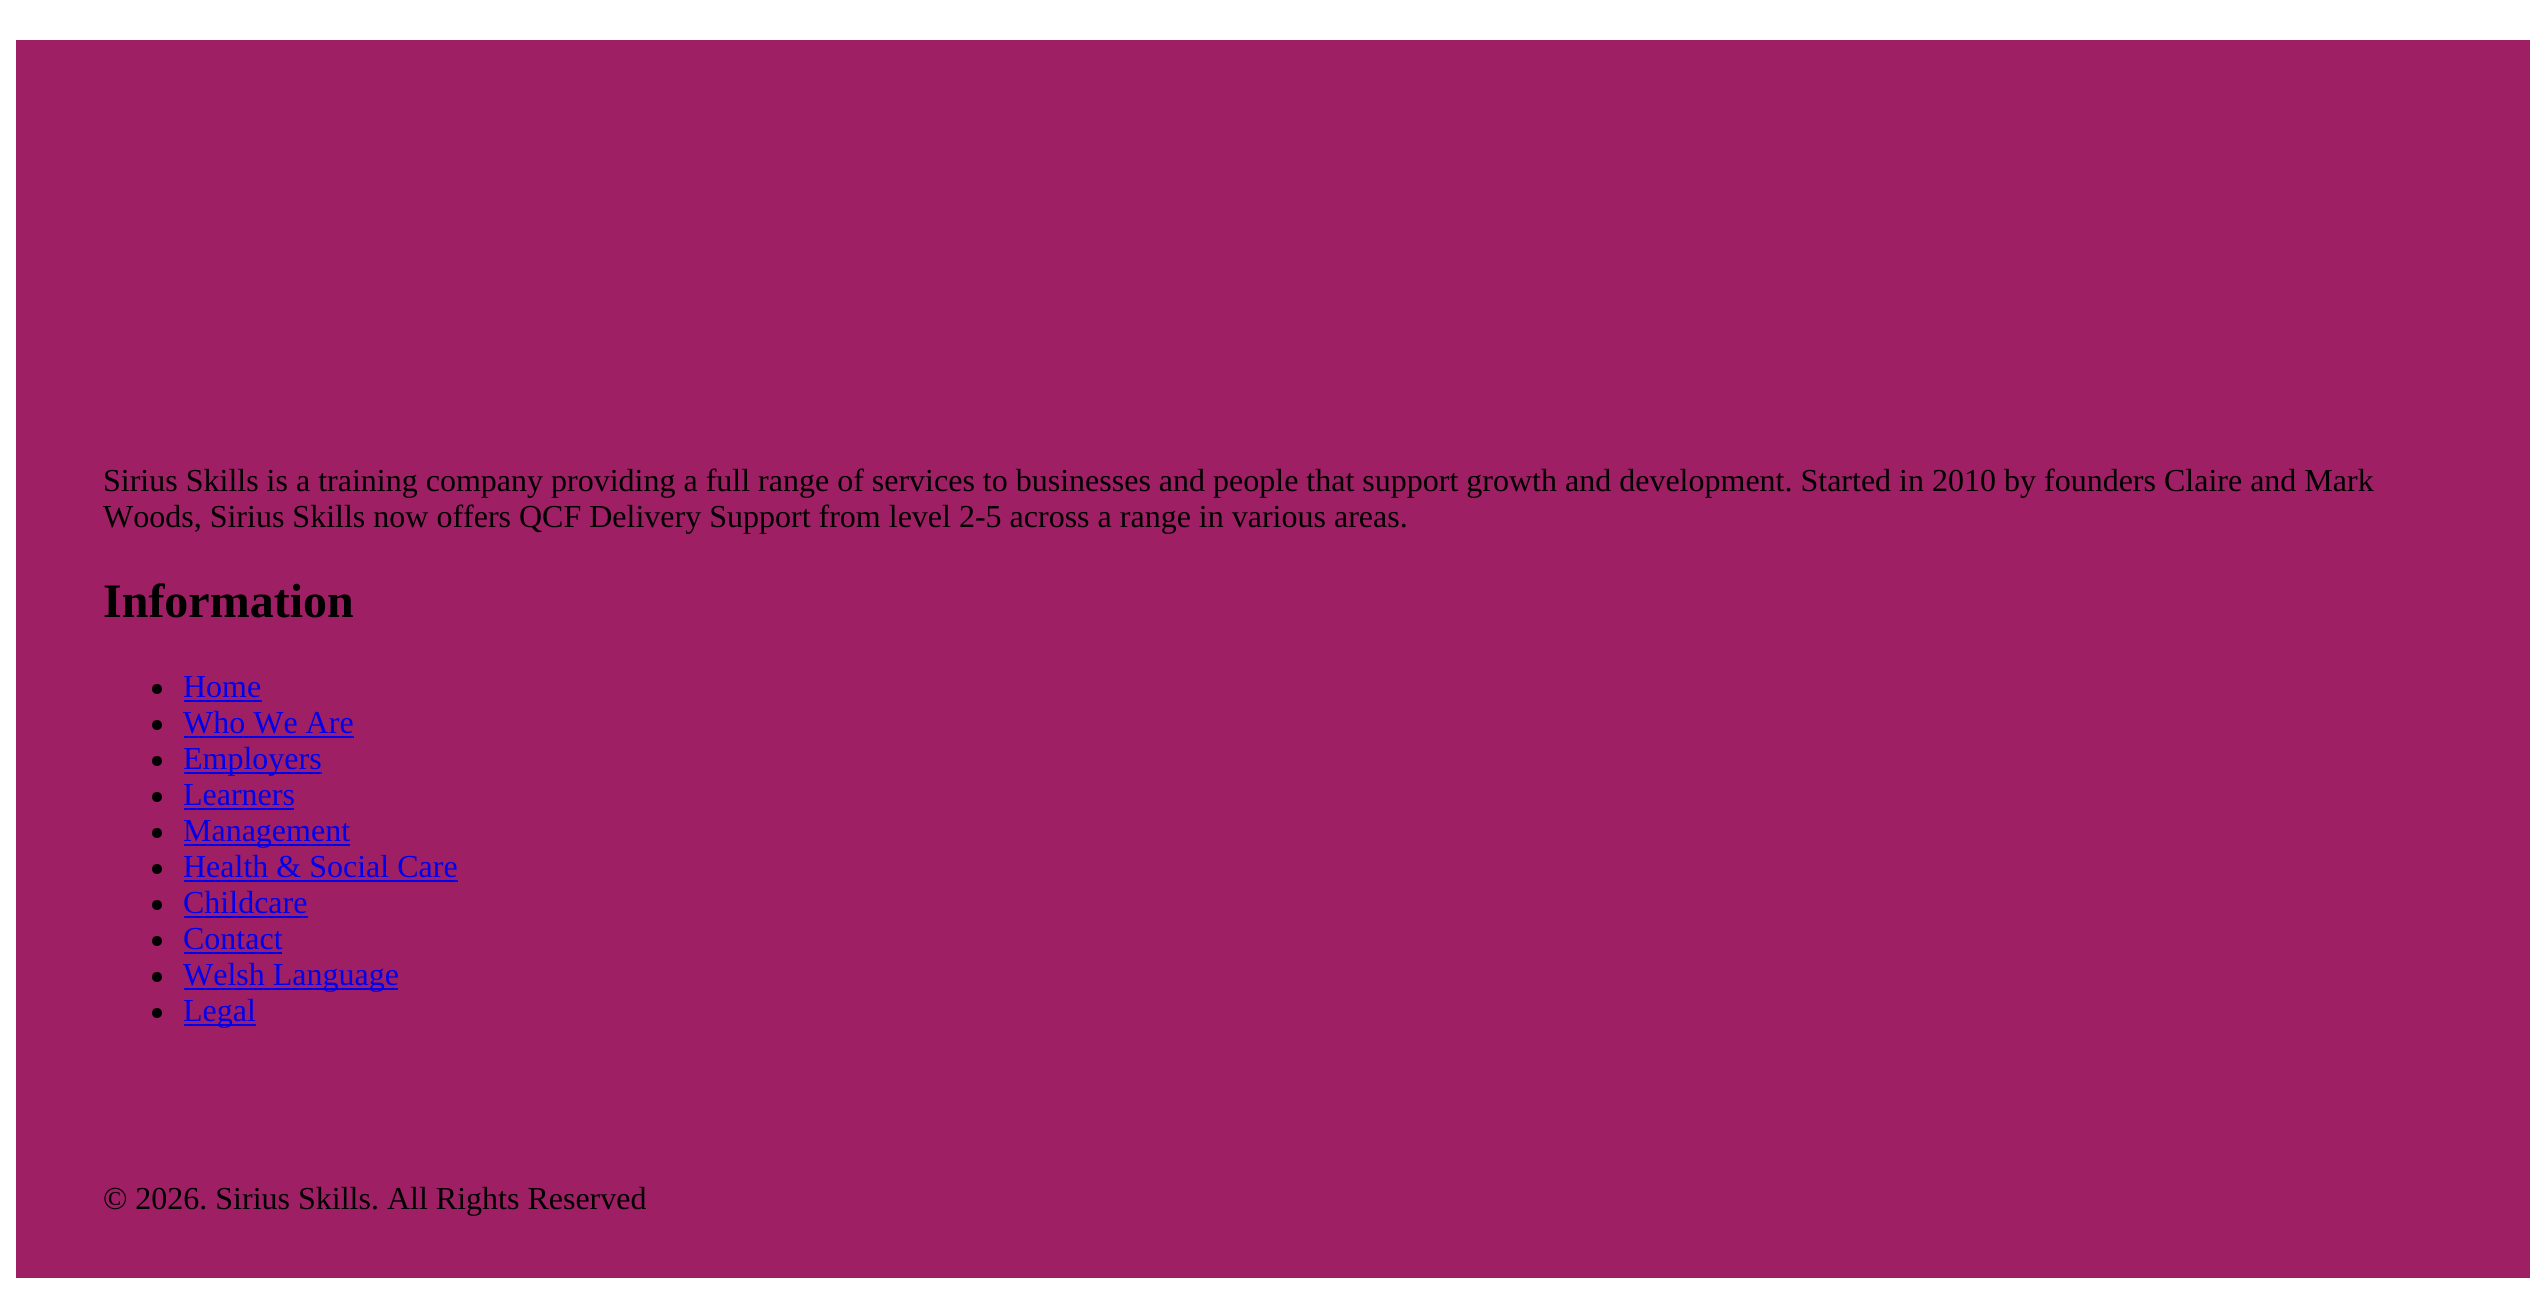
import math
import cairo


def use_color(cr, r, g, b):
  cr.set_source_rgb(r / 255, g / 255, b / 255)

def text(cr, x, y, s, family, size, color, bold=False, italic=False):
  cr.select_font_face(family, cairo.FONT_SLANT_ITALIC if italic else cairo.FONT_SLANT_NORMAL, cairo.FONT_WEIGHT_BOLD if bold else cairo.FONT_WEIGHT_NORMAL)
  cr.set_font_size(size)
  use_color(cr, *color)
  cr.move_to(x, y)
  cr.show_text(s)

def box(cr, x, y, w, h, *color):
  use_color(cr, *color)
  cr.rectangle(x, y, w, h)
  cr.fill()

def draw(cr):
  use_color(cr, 255, 255, 255)
  cr.paint()
  box(cr, 16, 40, 2514, 1238, 158, 31, 99)
  use_color(cr, 0, 0, 0)
  cr.arc(157, 689, 5, 0, 2 * math.pi)
  cr.fill()
  box(cr, 184, 700, 78, 2, 0, 0, 238)
  use_color(cr, 0, 0, 0)
  cr.arc(157, 725, 5, 0, 2 * math.pi)
  cr.fill()
  box(cr, 184, 736, 170, 2, 0, 0, 238)
  use_color(cr, 0, 0, 0)
  cr.arc(157, 761, 5, 0, 2 * math.pi)
  cr.fill()
  box(cr, 184, 772, 138, 2, 0, 0, 238)
  use_color(cr, 0, 0, 0)
  cr.arc(157, 797, 5, 0, 2 * math.pi)
  cr.fill()
  box(cr, 184, 808, 110, 2, 0, 0, 238)
  use_color(cr, 0, 0, 0)
  cr.arc(157, 833, 5, 0, 2 * math.pi)
  cr.fill()
  box(cr, 184, 844, 166, 2, 0, 0, 238)
  use_color(cr, 0, 0, 0)
  cr.arc(157, 869, 5, 0, 2 * math.pi)
  cr.fill()
  box(cr, 184, 880, 274, 2, 0, 0, 238)
  use_color(cr, 0, 0, 0)
  cr.arc(157, 905, 5, 0, 2 * math.pi)
  cr.fill()
  box(cr, 184, 916, 124, 2, 0, 0, 238)
  use_color(cr, 0, 0, 0)
  cr.arc(157, 941, 5, 0, 2 * math.pi)
  cr.fill()
  box(cr, 184, 952, 98, 2, 0, 0, 238)
  use_color(cr, 0, 0, 0)
  cr.arc(157, 977, 5, 0, 2 * math.pi)
  cr.fill()
  box(cr, 184, 988, 214, 2, 0, 0, 238)
  use_color(cr, 0, 0, 0)
  cr.arc(157, 1013, 5, 0, 2 * math.pi)
  cr.fill()
  box(cr, 184, 1024, 72, 2, 0, 0, 238)
  text(cr, 103, 491, "Sirius Skills is a training company providing a full range of services to businesses and people that support growth and development. Started in 2010 by founders Claire and Mark", "Liberation Serif", 32, (0, 0, 0))
  text(cr, 103, 527, "Woods, Sirius Skills now offers QCF Delivery Support from level 2-5 across a range in various areas.", "Liberation Serif", 32, (0, 0, 0))
  text(cr, 103, 617, "Information", "Liberation Serif", 48, (0, 0, 0), bold=True)
  text(cr, 183, 697, "Home", "Liberation Serif", 32, (0, 0, 238))
  text(cr, 183, 733, "Who We Are", "Liberation Serif", 32, (0, 0, 238))
  text(cr, 183, 769, "Employers", "Liberation Serif", 32, (0, 0, 238))
  text(cr, 183, 805, "Learners", "Liberation Serif", 32, (0, 0, 238))
  text(cr, 183, 841, "Management", "Liberation Serif", 32, (0, 0, 238))
  text(cr, 183, 877, "Health & Social Care", "Liberation Serif", 32, (0, 0, 238))
  text(cr, 183, 913, "Childcare", "Liberation Serif", 32, (0, 0, 238))
  text(cr, 183, 949, "Contact", "Liberation Serif", 32, (0, 0, 238))
  text(cr, 183, 985, "Welsh Language", "Liberation Serif", 32, (0, 0, 238))
  text(cr, 183, 1021, "Legal", "Liberation Serif", 32, (0, 0, 238))
  text(cr, 103, 1209, "© 2026. Sirius Skills. All Rights Reserved", "Liberation Serif", 32, (0, 0, 0))


surface = cairo.ImageSurface(cairo.FORMAT_RGB24, 2546, 1313)
cr = cairo.Context(surface)
options = cairo.FontOptions()
options.set_hint_metrics(cairo.HINT_METRICS_OFF)
options.set_hint_style(cairo.HINT_STYLE_NONE)
cr.set_font_options(options)
cr.set_miter_limit(4)
draw(cr)
surface.write_to_png("out.png")
